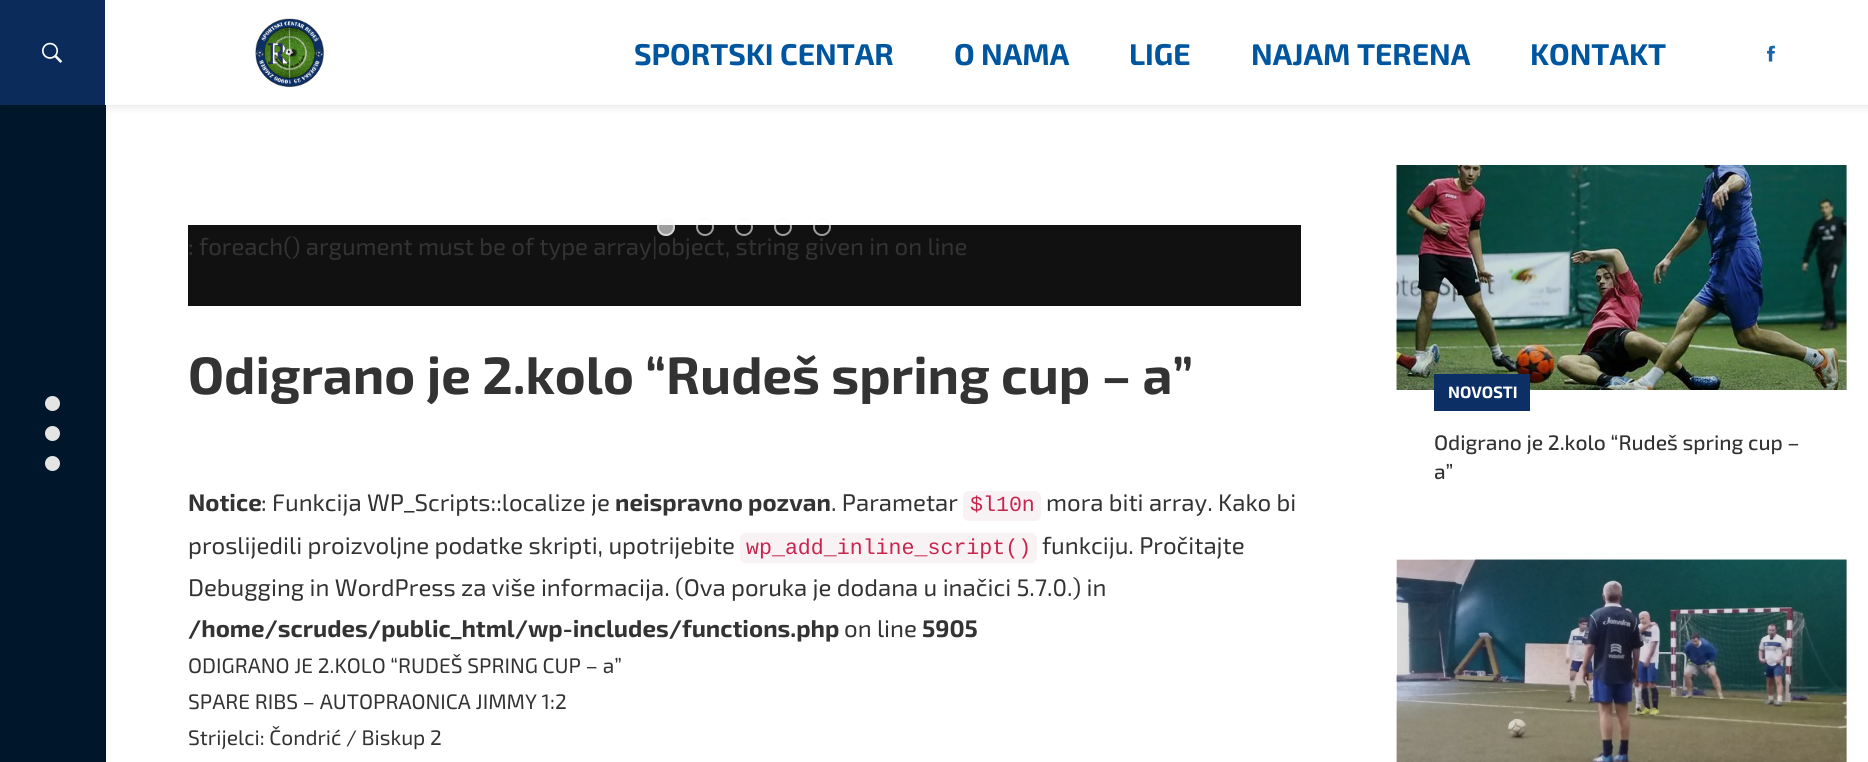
import math
import cairo


def use_color(cr, r, g, b):
  cr.set_source_rgb(r / 255, g / 255, b / 255)

def text(cr, x, y, s, family, size, color, bold=False, italic=False):
  cr.select_font_face(family, cairo.FONT_SLANT_ITALIC if italic else cairo.FONT_SLANT_NORMAL, cairo.FONT_WEIGHT_BOLD if bold else cairo.FONT_WEIGHT_NORMAL)
  cr.set_font_size(size)
  use_color(cr, *color)
  cr.move_to(x, y)
  cr.show_text(s)

def box(cr, x, y, w, h, *color):
  use_color(cr, *color)
  cr.rectangle(x, y, w, h)
  cr.fill()

def round_rect(cr, x, y, w, h, r):
  cr.new_sub_path()
  for i, (u, v) in enumerate([(x + w - r, y + h - r), (x + r, y + h - r), (x + r, y + r), (x + w - r, y + r)]):
    cr.arc(u, v, r, i * math.pi / 2, (i + 1) * math.pi / 2)
  cr.close_path()

def shadow(cr, x, y, w, h, r, blur, alpha):
  cr.push_group_with_content(cairo.CONTENT_ALPHA)
  cr.set_operator(cairo.OPERATOR_SOURCE)
  for i in range(15, -16, -2):
    e = blur * i / 6
    if min(w, h) + 2 * e > 0:
      cr.set_source_rgba(0, 0, 0, alpha * math.erfc((i - 1) / 8.5) / 2)
      round_rect(cr, x - e, y - e, w + 2 * e, h + 2 * e, max(0, min(r + e + blur * .6, min(w, h) / 2 + e)))
      cr.fill()
  cr.mask(cr.pop_group())

def picture(cr, path, x, y, w, h):
  cr.save()
  cr.set_source_surface(cairo.ImageSurface.create_from_png(path), x, y)
  cr.rectangle(x, y, w, h)
  cr.fill()
  cr.restore()

def draw(cr):
  use_color(cr, 255, 255, 255)
  cr.paint()
  box(cr, 1846, 560, 1, 202, 217, 217, 217)
  box(cr, 1846, 165, 1, 225, 217, 217, 217)
  box(cr, 0, 105, 106, 657, 0, 23, 43)
  use_color(cr, 0, 0, 0)
  shadow(cr, 0, 2, 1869, 105, 0, 4, 0.1)
  box(cr, 105, 0, 1763, 105, 255, 255, 255)
  box(cr, 0, 0, 105, 105, 11, 43, 91)
  picture(cr, "img_01.png", 42, 42, 21, 21)
  picture(cr, "img_02.png", 255, 18, 69, 69)
  picture(cr, "img_03.png", 1767, 45, 8, 17)
  use_color(cr, 228, 228, 228)
  cr.arc(52.5, 403.5, 7.5, 0, 2 * math.pi)
  cr.fill()
  cr.arc(52.5, 433.5, 7.5, 0, 2 * math.pi)
  cr.fill()
  cr.arc(52.5, 463.5, 7.5, 0, 2 * math.pi)
  cr.fill()
  box(cr, 188, 225, 1113, 81, 17, 17, 17)
  cr.set_source_rgba(0.98, 0.98, 0.98, 0.6)
  cr.arc(666, 227, 9, 0, 2 * math.pi)
  cr.fill()
  cr.arc(666, 227, 8, 0, 2 * math.pi)
  cr.stroke()
  cr.arc(705, 227, 8, 0, 2 * math.pi)
  cr.stroke()
  cr.arc(744, 227, 8, 0, 2 * math.pi)
  cr.stroke()
  cr.arc(783, 227, 8, 0, 2 * math.pi)
  cr.stroke()
  cr.arc(822, 227, 8, 0, 2 * math.pi)
  cr.stroke()
  use_color(cr, 249, 242, 244)
  round_rect(cr, 963, 491, 78, 30, 6)
  cr.fill()
  round_rect(cr, 740, 533, 297, 30, 6)
  cr.fill()
  picture(cr, "img_04.png", 1396, 165, 451, 225)
  box(cr, 1434, 374, 96, 37, 12, 48, 101)
  picture(cr, "img_05.png", 1396, 559, 451, 203)
  text(cr, 634, 65, "SPORTSKI CENTAR", "Exo 2", 30, (0, 85, 159), bold=True)
  text(cr, 954, 65, "O NAMA", "Exo 2", 30, (0, 85, 159), bold=True)
  text(cr, 1129, 65, "LIGE", "Exo 2", 30, (0, 85, 159), bold=True)
  text(cr, 1251, 65, "NAJAM TERENA", "Exo 2", 30, (0, 85, 159), bold=True)
  text(cr, 1530, 65, "KONTAKT", "Exo 2", 30, (0, 85, 159), bold=True)
  text(cr, 188, 255, ": foreach() argument must be of type array|object, string given in on line", "Exo 2", 24, (51, 51, 51))
  text(cr, 188, 394, "Odigrano je 2.kolo “Rudeš spring cup – a”", "Exo 2", 52.5, (51, 51, 51), bold=True)
  text(cr, 188, 511, "Notice", "Exo 2", 24, (51, 51, 51), bold=True)
  text(cr, 261, 511, ": Funkcija WP_Scripts::localize je", "Exo 2", 24, (51, 51, 51))
  text(cr, 615, 511, "neispravno pozvan", "Exo 2", 24, (51, 51, 51), bold=True)
  text(cr, 831, 511, ". Parametar", "Exo 2", 24, (51, 51, 51))
  text(cr, 970, 511, "$l10n", "Liberation Mono", 21.6, (199, 37, 78))
  text(cr, 1046, 511, "mora biti array. Kako bi", "Exo 2", 24, (51, 51, 51))
  text(cr, 188, 554, "proslijedili proizvoljne podatke skripti, upotrijebite", "Exo 2", 24, (51, 51, 51))
  text(cr, 746, 554, "wp_add_inline_script()", "Liberation Mono", 21.6, (199, 37, 78))
  text(cr, 1042, 554, "funkciju. Pročitajte", "Exo 2", 24, (51, 51, 51))
  text(cr, 188, 596, "Debugging in WordPress za više informacija. (Ova poruka je dodana u inačici 5.7.0.) in", "Exo 2", 24, (51, 51, 51))
  text(cr, 188, 637, "/home/scrudes/public_html/wp-includes/functions.php", "Exo 2", 24, (51, 51, 51), bold=True)
  text(cr, 844, 637, "on line", "Exo 2", 24, (51, 51, 51))
  text(cr, 922, 637, "5905", "Exo 2", 24, (51, 51, 51), bold=True)
  text(cr, 188, 673, "ODIGRANO JE 2.KOLO “RUDEŠ SPRING CUP – a”", "Exo 2", 21, (51, 51, 51))
  text(cr, 188, 709, "SPARE RIBS – AUTOPRAONICA JIMMY 1:2", "Exo 2", 21, (51, 51, 51))
  text(cr, 188, 745, "Strijelci: Čondrić / Biskup 2", "Exo 2", 21, (51, 51, 51))
  text(cr, 1448, 398, "NOVOSTI", "Exo 2", 16.5, (255, 255, 255), bold=True)
  text(cr, 1434, 450, "Odigrano je 2.kolo “Rudeš spring cup –", "Exo 2 Medium", 21, (51, 51, 51))
  text(cr, 1434, 479, "a”", "Exo 2 Medium", 21, (51, 51, 51))


surface = cairo.ImageSurface(cairo.FORMAT_RGB24, 1868, 762)
cr = cairo.Context(surface)
options = cairo.FontOptions()
options.set_hint_metrics(cairo.HINT_METRICS_OFF)
options.set_hint_style(cairo.HINT_STYLE_NONE)
cr.set_font_options(options)
cr.set_miter_limit(4)
draw(cr)
surface.write_to_png("out.png")
